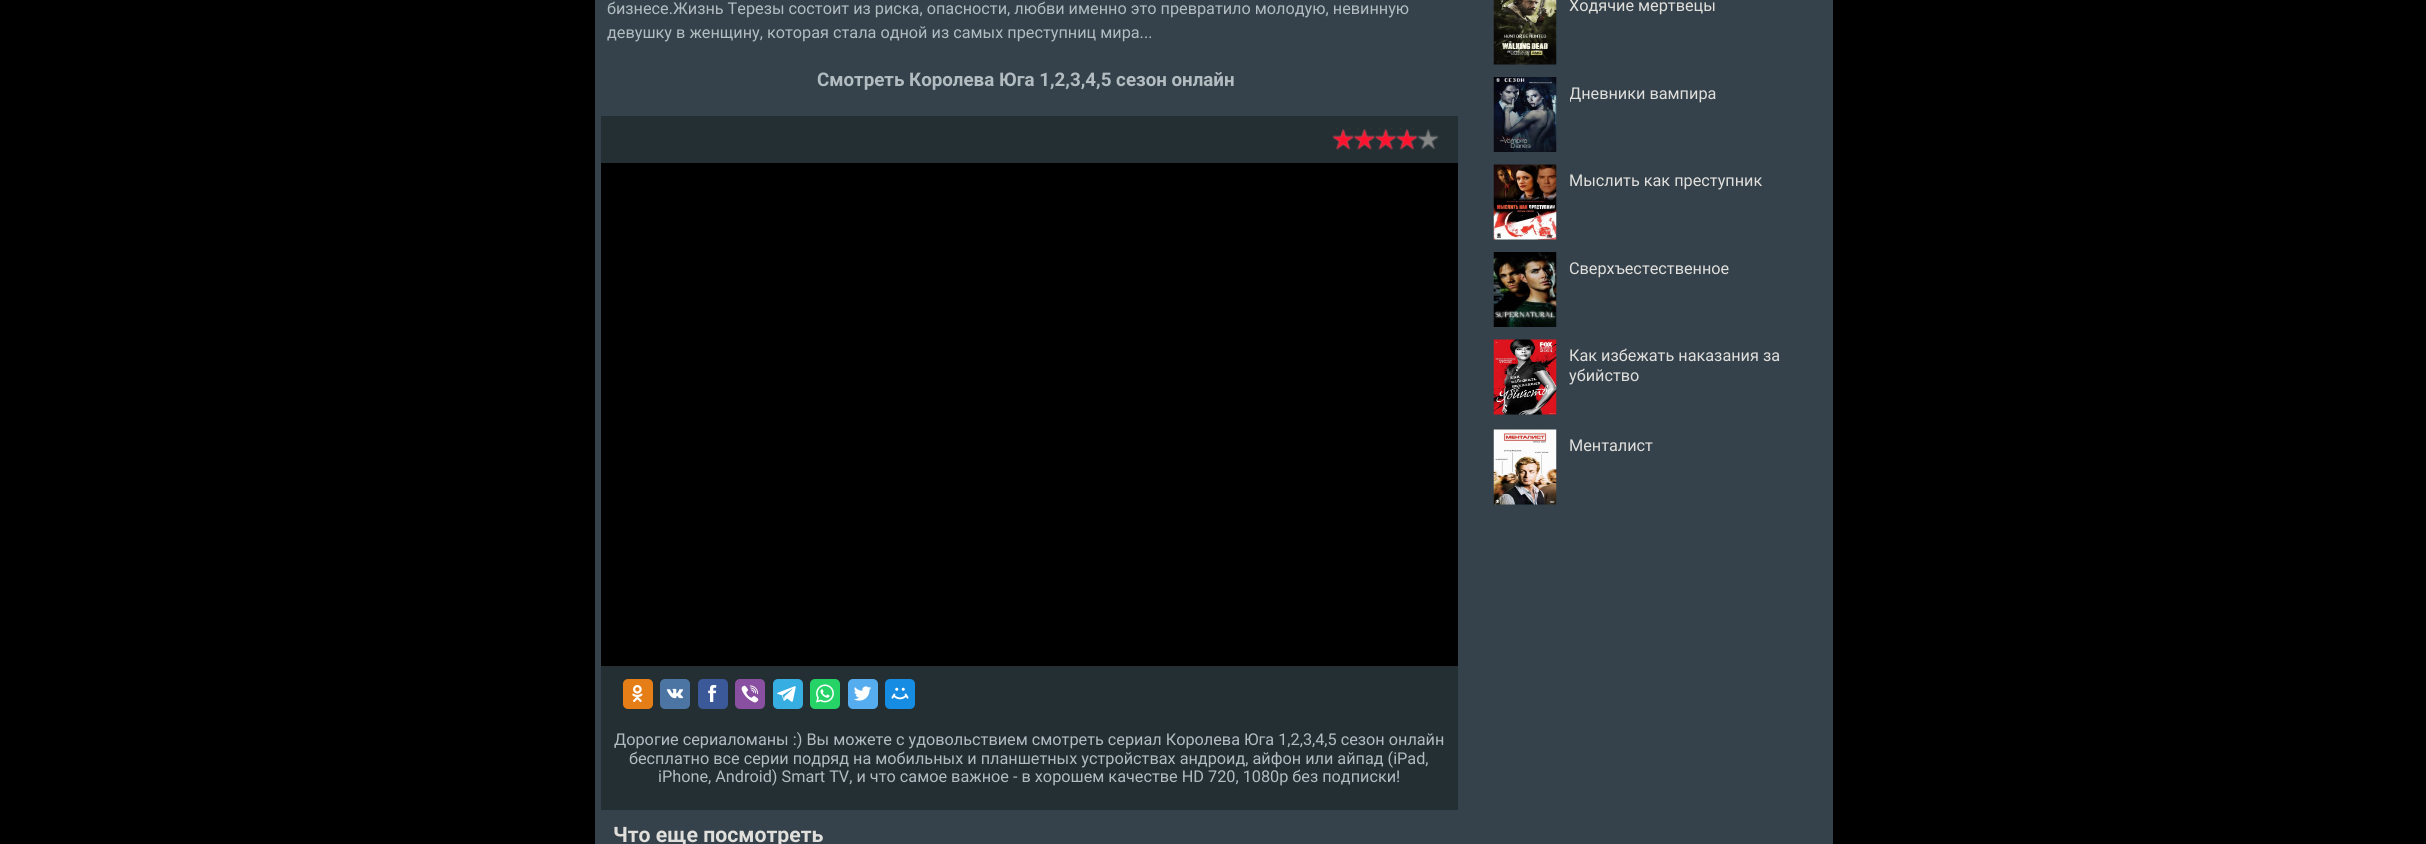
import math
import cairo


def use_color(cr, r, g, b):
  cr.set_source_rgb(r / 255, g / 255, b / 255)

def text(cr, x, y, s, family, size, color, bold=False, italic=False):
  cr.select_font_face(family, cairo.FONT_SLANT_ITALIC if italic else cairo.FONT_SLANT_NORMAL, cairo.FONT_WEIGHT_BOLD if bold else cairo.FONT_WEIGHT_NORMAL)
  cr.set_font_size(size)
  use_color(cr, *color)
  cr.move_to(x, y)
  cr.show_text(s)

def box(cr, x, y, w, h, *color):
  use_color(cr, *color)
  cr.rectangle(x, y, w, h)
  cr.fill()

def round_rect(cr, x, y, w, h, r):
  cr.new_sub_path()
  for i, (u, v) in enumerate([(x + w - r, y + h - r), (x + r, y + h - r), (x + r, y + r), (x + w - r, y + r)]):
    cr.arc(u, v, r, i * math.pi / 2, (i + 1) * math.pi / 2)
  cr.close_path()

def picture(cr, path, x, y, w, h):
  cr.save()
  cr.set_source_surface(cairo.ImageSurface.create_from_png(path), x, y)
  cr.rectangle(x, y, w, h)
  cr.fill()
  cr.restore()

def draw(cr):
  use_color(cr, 0, 0, 0)
  cr.paint()
  box(cr, 595, 0, 1238, 844, 53, 66, 75)
  box(cr, 601, 116, 857, 694, 36, 47, 52)
  picture(cr, "img_01.png", 1332, 129, 107, 21)
  picture(cr, "img_02.png", 1332, 128, 86, 22)
  box(cr, 601, 163, 857, 503, 0, 0, 0)
  use_color(cr, 230, 126, 23)
  round_rect(cr, 623, 679, 30, 30, 5)
  cr.fill()
  picture(cr, "img_03.png", 632, 685, 11, 17)
  use_color(cr, 77, 117, 163)
  round_rect(cr, 660, 679, 30, 30, 5)
  cr.fill()
  picture(cr, "img_04.png", 666, 688, 18, 11)
  use_color(cr, 59, 89, 152)
  round_rect(cr, 698, 679, 30, 30, 5)
  cr.fill()
  picture(cr, "img_05.png", 708, 685, 9, 17)
  use_color(cr, 137, 80, 161)
  round_rect(cr, 735, 679, 30, 30, 5)
  cr.fill()
  picture(cr, "img_06.png", 741, 685, 18, 18)
  use_color(cr, 55, 174, 226)
  round_rect(cr, 773, 679, 30, 30, 5)
  cr.fill()
  picture(cr, "img_07.png", 777, 686, 19, 16)
  use_color(cr, 37, 211, 102)
  round_rect(cr, 810, 679, 30, 30, 5)
  cr.fill()
  picture(cr, "img_08.png", 816, 684, 18, 19)
  use_color(cr, 85, 172, 238)
  round_rect(cr, 848, 679, 30, 30, 5)
  cr.fill()
  picture(cr, "img_09.png", 854, 686, 18, 15)
  use_color(cr, 22, 141, 226)
  round_rect(cr, 885, 679, 30, 30, 5)
  cr.fill()
  picture(cr, "img_10.png", 891, 687, 18, 13)
  picture(cr, "img_11.png", 1493, 0, 64, 65)
  picture(cr, "img_12.png", 1493, 77, 64, 75)
  picture(cr, "img_13.png", 1493, 164, 64, 76)
  picture(cr, "img_14.png", 1493, 252, 64, 75)
  picture(cr, "img_15.png", 1493, 339, 64, 76)
  picture(cr, "img_16.png", 1493, 429, 64, 76)
  text(cr, 607, 14, "бизнесе.Жизнь Терезы состоит из риска, опасности, любви именно это превратило молодую, невинную", "Roboto", 16.25, (178, 188, 193))
  text(cr, 607, 38, "девушку в женщину, которая стала одной из самых преступниц мира...", "Roboto", 16.25, (178, 188, 193))
  text(cr, 817, 86, "Смотреть Королева Юга 1,2,3,4,5 сезон онлайн", "Roboto", 18.75, (178, 188, 193), bold=True)
  text(cr, 614, 745, "Дорогие сериаломаны :) Вы можете с удовольствием смотреть сериал Королева Юга 1,2,3,4,5 сезон онлайн", "Roboto", 16.25, (178, 188, 193))
  text(cr, 629, 764, "бесплатно все серии подряд на мобильных и планшетных устройствах андроид, айфон или айпад (iPad,", "Roboto", 16.25, (178, 188, 193))
  text(cr, 658, 782, "iPhone, Android) Smart TV, и что самое важное - в хорошем качестве HD 720, 1080p без подписки!", "Roboto", 16.25, (178, 188, 193))
  text(cr, 613, 842, "Что еще посмотреть", "Roboto", 21.25, (224, 223, 220), bold=True)
  text(cr, 1569, 11, "Ходячие мертвецы", "Roboto", 16.25, (224, 223, 220))
  cr.save()
  cr.rectangle(1570, 84, 250, 20)
  cr.clip()
  text(cr, 1569, 99, "Дневники вампира", "Roboto", 16.25, (224, 223, 220))
  cr.restore()
  text(cr, 1569, 186, "Мыслить как преступник", "Roboto", 16.25, (224, 223, 220))
  text(cr, 1569, 274, "Сверхъестественное", "Roboto", 16.25, (224, 223, 220))
  text(cr, 1569, 361, "Как избежать наказания за", "Roboto", 16.25, (224, 223, 220))
  text(cr, 1569, 381, "убийство", "Roboto", 16.25, (224, 223, 220))
  text(cr, 1569, 451, "Менталист", "Roboto", 16.25, (224, 223, 220))


surface = cairo.ImageSurface(cairo.FORMAT_RGB24, 2426, 844)
cr = cairo.Context(surface)
options = cairo.FontOptions()
options.set_hint_metrics(cairo.HINT_METRICS_OFF)
options.set_hint_style(cairo.HINT_STYLE_NONE)
cr.set_font_options(options)
cr.set_miter_limit(4)
draw(cr)
surface.write_to_png("out.png")
